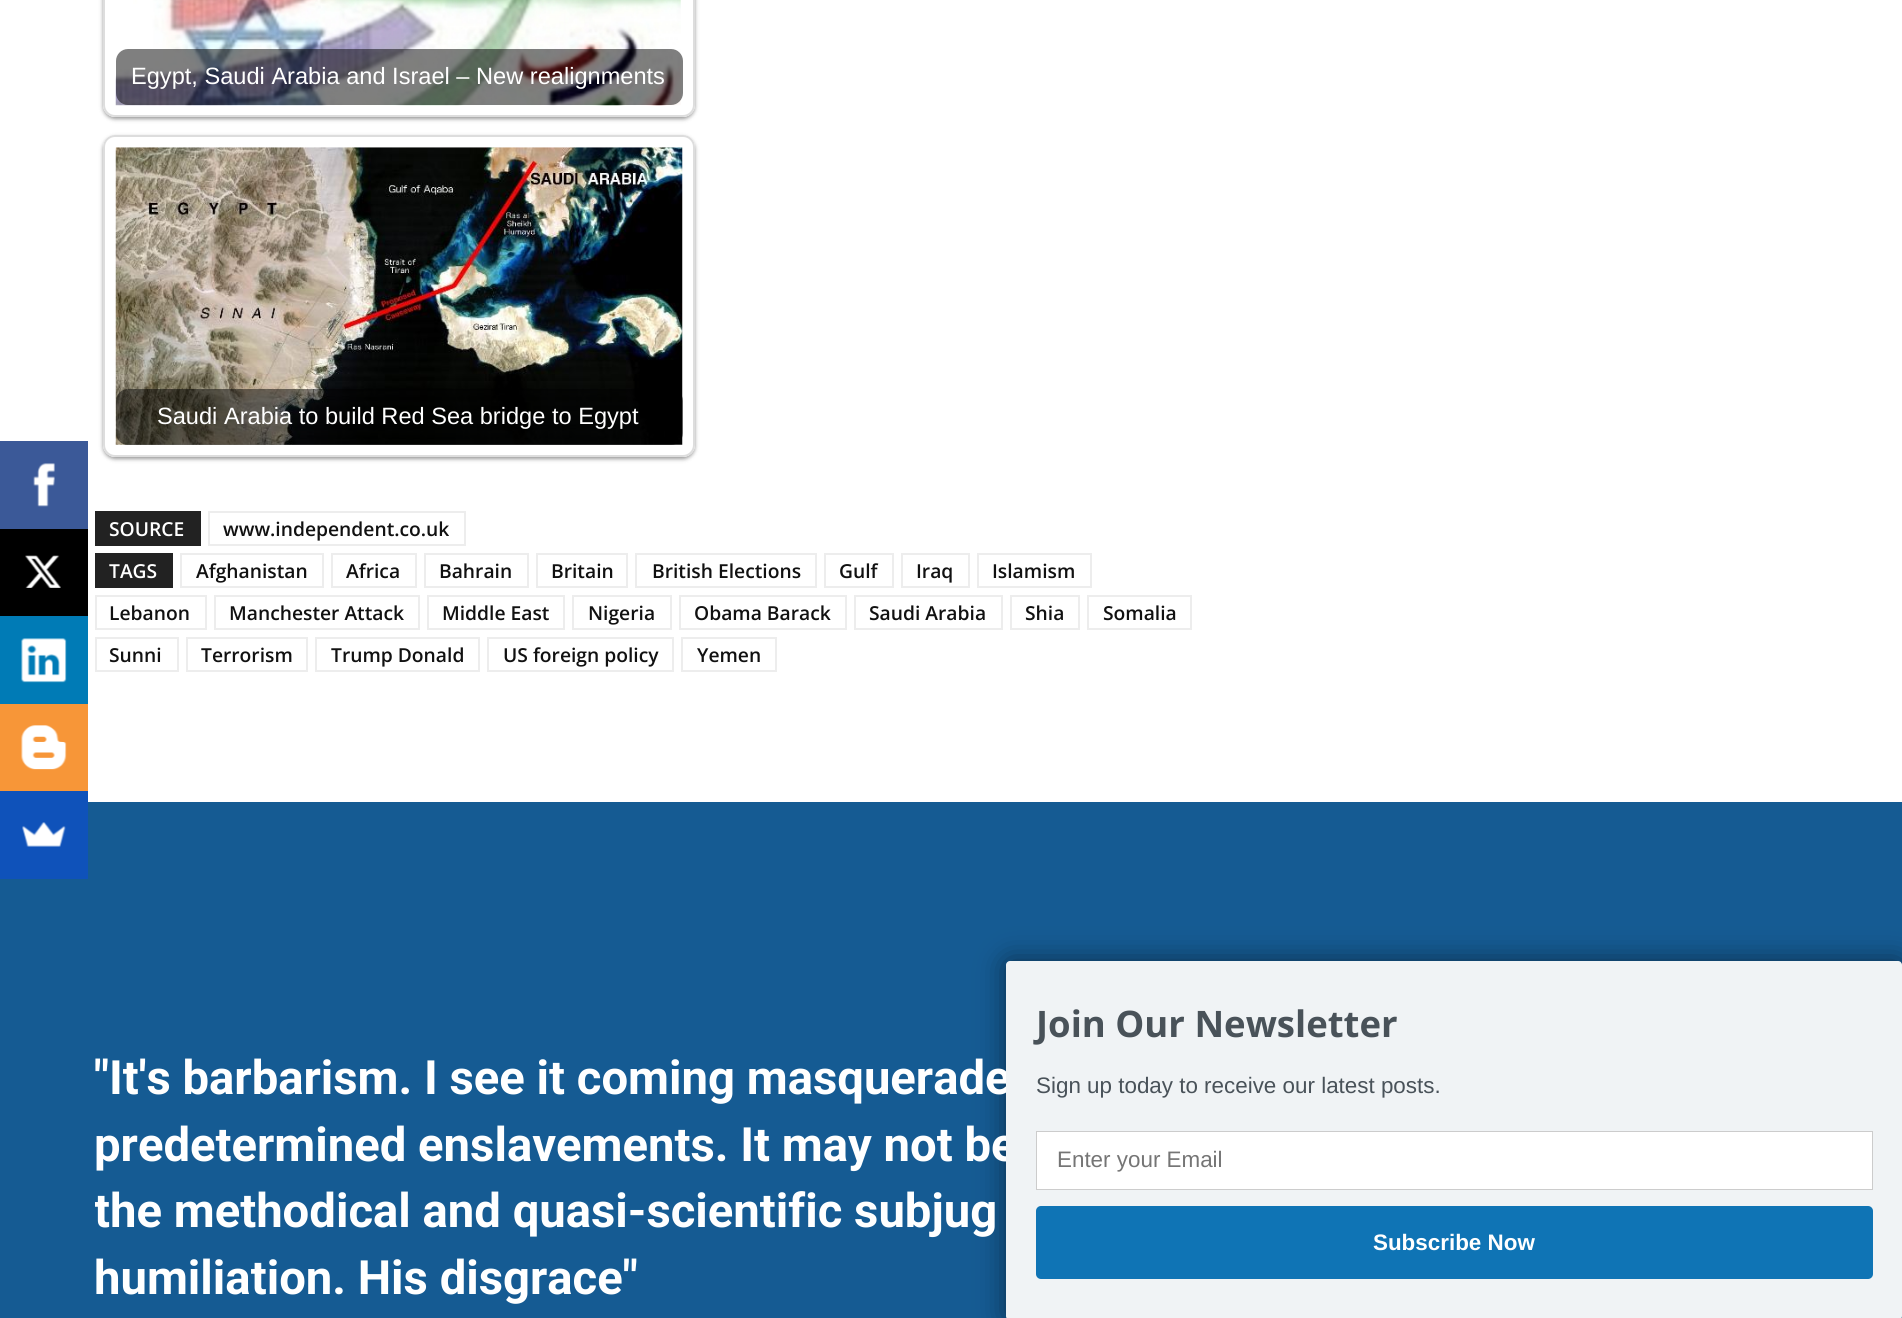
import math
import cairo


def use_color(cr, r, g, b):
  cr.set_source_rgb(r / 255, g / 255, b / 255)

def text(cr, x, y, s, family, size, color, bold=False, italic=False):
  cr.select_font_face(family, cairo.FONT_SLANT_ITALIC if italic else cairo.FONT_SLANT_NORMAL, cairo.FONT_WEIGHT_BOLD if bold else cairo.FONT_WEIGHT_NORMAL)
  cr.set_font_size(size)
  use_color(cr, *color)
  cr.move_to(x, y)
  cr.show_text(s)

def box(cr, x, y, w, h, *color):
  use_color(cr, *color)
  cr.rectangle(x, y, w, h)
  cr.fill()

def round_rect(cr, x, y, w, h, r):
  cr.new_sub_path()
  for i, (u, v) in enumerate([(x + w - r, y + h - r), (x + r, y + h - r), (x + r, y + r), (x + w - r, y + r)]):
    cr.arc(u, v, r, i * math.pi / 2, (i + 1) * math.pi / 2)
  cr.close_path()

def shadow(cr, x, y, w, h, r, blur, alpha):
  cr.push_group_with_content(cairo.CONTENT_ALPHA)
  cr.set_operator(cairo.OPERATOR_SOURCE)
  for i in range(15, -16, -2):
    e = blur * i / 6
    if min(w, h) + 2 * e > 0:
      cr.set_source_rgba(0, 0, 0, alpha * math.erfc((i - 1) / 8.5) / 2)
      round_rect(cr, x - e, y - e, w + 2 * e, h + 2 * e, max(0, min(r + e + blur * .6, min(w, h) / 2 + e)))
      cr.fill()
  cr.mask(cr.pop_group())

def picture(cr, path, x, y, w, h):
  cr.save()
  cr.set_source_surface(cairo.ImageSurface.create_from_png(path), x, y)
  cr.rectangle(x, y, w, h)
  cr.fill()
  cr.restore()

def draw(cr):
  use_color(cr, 255, 255, 255)
  cr.paint()
  box(cr, 0, 441, 88, 88, 59, 89, 152)
  picture(cr, "img_01.png", 33, 463, 22, 44)
  box(cr, 0, 529, 88, 87, 0, 0, 0)
  picture(cr, "img_02.png", 25, 555, 36, 33)
  box(cr, 0, 616, 88, 88, 0, 123, 182)
  picture(cr, "img_03.png", 21, 638, 46, 45)
  box(cr, 0, 704, 88, 87, 247, 150, 56)
  picture(cr, "img_04.png", 21, 725, 46, 45)
  box(cr, 0, 802, 1902, 516, 21, 91, 147)
  box(cr, 0, 791, 88, 88, 15, 82, 186)
  picture(cr, "img_05.png", 22, 822, 44, 25)
  cr.save()
  cr.set_fill_rule(cairo.FILL_RULE_EVEN_ODD)
  cr.new_path()
  cr.move_to(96, 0)
  cr.line_to(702, 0)
  cr.line_to(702, 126)
  cr.line_to(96, 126)
  cr.close_path()
  cr.move_to(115, -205)
  cr.line_to(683, -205)
  cr.curve_to(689.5, -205, 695, -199.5, 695, -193)
  cr.line_to(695, 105)
  cr.curve_to(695, 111.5, 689.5, 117, 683, 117)
  cr.line_to(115, 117)
  cr.curve_to(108.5, 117, 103, 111.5, 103, 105)
  cr.line_to(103, -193)
  cr.curve_to(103, -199.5, 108.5, -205, 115, -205)
  cr.close_path()
  cr.clip()
  use_color(cr, 0, 0, 0)
  shadow(cr, 103, -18, 592, 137, 12, 2, 0.4)
  cr.restore()
  round_rect(cr, 104, -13, 590, 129, 11)
  use_color(cr, 221, 221, 221)
  cr.stroke()
  picture(cr, "img_06.png", 115, 0, 566, 106)
  cr.set_source_rgba(0, 0, 0, 0.5)
  round_rect(cr, 116, 49, 567, 56, 12)
  cr.fill()
  cr.save()
  cr.set_fill_rule(cairo.FILL_RULE_EVEN_ODD)
  cr.new_path()
  cr.move_to(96, 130)
  cr.line_to(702, 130)
  cr.line_to(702, 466)
  cr.line_to(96, 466)
  cr.close_path()
  cr.move_to(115, 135)
  cr.line_to(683, 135)
  cr.curve_to(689.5, 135, 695, 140.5, 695, 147)
  cr.line_to(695, 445)
  cr.curve_to(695, 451.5, 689.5, 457, 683, 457)
  cr.line_to(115, 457)
  cr.curve_to(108.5, 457, 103, 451.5, 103, 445)
  cr.line_to(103, 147)
  cr.curve_to(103, 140.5, 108.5, 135, 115, 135)
  cr.close_path()
  cr.clip()
  use_color(cr, 0, 0, 0)
  shadow(cr, 103, 137, 592, 322, 12, 2, 0.4)
  cr.restore()
  round_rect(cr, 104, 136, 590, 320, 11)
  use_color(cr, 221, 221, 221)
  cr.stroke()
  picture(cr, "img_07.png", 115, 147, 568, 298)
  cr.set_source_rgba(0, 0, 0, 0.5)
  round_rect(cr, 116, 389, 567, 56, 12)
  cr.fill()
  box(cr, 95, 511, 106, 35, 34, 34, 34)
  cr.rectangle(209, 512, 256, 33)
  use_color(cr, 237, 237, 237)
  cr.stroke()
  box(cr, 95, 553, 78, 35, 34, 34, 34)
  cr.rectangle(181, 554, 142, 33)
  use_color(cr, 237, 237, 237)
  cr.stroke()
  cr.rectangle(332, 554, 84, 33)
  cr.stroke()
  cr.rectangle(425, 554, 103, 33)
  cr.stroke()
  cr.rectangle(537, 554, 90, 33)
  cr.stroke()
  cr.rectangle(636, 554, 180, 33)
  cr.stroke()
  cr.rectangle(825, 554, 68, 33)
  cr.stroke()
  cr.rectangle(902, 554, 67, 33)
  cr.stroke()
  cr.rectangle(978, 554, 113, 33)
  cr.stroke()
  cr.rectangle(96, 596, 110, 33)
  cr.stroke()
  cr.rectangle(215, 596, 204, 33)
  cr.stroke()
  cr.rectangle(428, 596, 136, 33)
  cr.stroke()
  cr.rectangle(573, 596, 98, 33)
  cr.stroke()
  cr.rectangle(680, 596, 166, 33)
  cr.stroke()
  cr.rectangle(855, 596, 147, 33)
  cr.stroke()
  cr.rectangle(1011, 596, 68, 33)
  cr.stroke()
  cr.rectangle(1088, 596, 103, 33)
  cr.stroke()
  cr.rectangle(96, 638, 82, 33)
  cr.stroke()
  cr.rectangle(187, 638, 120, 33)
  cr.stroke()
  cr.rectangle(316, 638, 163, 33)
  cr.stroke()
  cr.rectangle(488, 638, 185, 33)
  cr.stroke()
  cr.rectangle(682, 638, 94, 33)
  cr.stroke()
  use_color(cr, 0, 0, 0)
  shadow(cr, 1006, 961, 896, 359, 4, 14, 0.5)
  text(cr, 131, 84, "Egypt, Saudi Arabia and Israel – New realignments", "Liberation Sans", 23.6, (255, 255, 255))
  text(cr, 157, 424, "Saudi Arabia to build Red Sea bridge to Egypt", "Liberation Sans", 23.6, (255, 255, 255))
  text(cr, 109, 536, "SOURCE", "Open Sans SemiBold", 19.25, (255, 255, 255))
  text(cr, 223, 536, "www.independent.co.uk", "Open Sans SemiBold", 19.25, (17, 17, 17))
  text(cr, 109, 578, "TAGS", "Open Sans SemiBold", 19.25, (255, 255, 255))
  text(cr, 196, 578, "Afghanistan", "Open Sans SemiBold", 19.25, (17, 17, 17))
  text(cr, 346, 578, "Africa", "Open Sans SemiBold", 19.25, (17, 17, 17))
  text(cr, 439, 578, "Bahrain", "Open Sans SemiBold", 19.25, (17, 17, 17))
  text(cr, 551, 578, "Britain", "Open Sans SemiBold", 19.25, (17, 17, 17))
  text(cr, 652, 578, "British Elections", "Open Sans SemiBold", 19.25, (17, 17, 17))
  text(cr, 839, 578, "Gulf", "Open Sans SemiBold", 19.25, (17, 17, 17))
  text(cr, 916, 578, "Iraq", "Open Sans SemiBold", 19.25, (17, 17, 17))
  text(cr, 992, 578, "Islamism", "Open Sans SemiBold", 19.25, (17, 17, 17))
  text(cr, 109, 620, "Lebanon", "Open Sans SemiBold", 19.25, (17, 17, 17))
  text(cr, 229, 620, "Manchester Attack", "Open Sans SemiBold", 19.25, (17, 17, 17))
  text(cr, 442, 620, "Middle East", "Open Sans SemiBold", 19.25, (17, 17, 17))
  text(cr, 588, 620, "Nigeria", "Open Sans SemiBold", 19.25, (17, 17, 17))
  text(cr, 694, 620, "Obama Barack", "Open Sans SemiBold", 19.25, (17, 17, 17))
  text(cr, 869, 620, "Saudi Arabia", "Open Sans SemiBold", 19.25, (17, 17, 17))
  text(cr, 1025, 620, "Shia", "Open Sans SemiBold", 19.25, (17, 17, 17))
  text(cr, 1103, 620, "Somalia", "Open Sans SemiBold", 19.25, (17, 17, 17))
  text(cr, 109, 662, "Sunni", "Open Sans SemiBold", 19.25, (17, 17, 17))
  text(cr, 201, 662, "Terrorism", "Open Sans SemiBold", 19.25, (17, 17, 17))
  text(cr, 331, 662, "Trump Donald", "Open Sans SemiBold", 19.25, (17, 17, 17))
  text(cr, 503, 662, "US foreign policy", "Open Sans SemiBold", 19.25, (17, 17, 17))
  text(cr, 697, 662, "Yemen", "Open Sans SemiBold", 19.25, (17, 17, 17))
  text(cr, 94, 1094, "\"It's barbarism. I see it coming masquerade", "Roboto", 47.25, (255, 255, 255), bold=True)
  text(cr, 94, 1161, "predetermined enslavements. It may not be", "Roboto", 47.25, (255, 255, 255), bold=True)
  cr.save()
  cr.rectangle(95, 992, 1715, 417)
  cr.clip()
  text(cr, 94, 1227, "the methodical and quasi-scientific subjug", "Roboto", 47.25, (255, 255, 255), bold=True)
  cr.restore()
  text(cr, 94, 1294, "humiliation. His disgrace\"", "Roboto", 47.25, (255, 255, 255), bold=True)
  use_color(cr, 240, 243, 245)
  round_rect(cr, 1006, 961, 896, 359, 4)
  cr.fill()
  text(cr, 1036, 1037, "Join Our Newsletter", "Open Sans", 36.5, (73, 82, 89), bold=True)
  text(cr, 1036, 1093, "Sign up today to receive our latest posts.", "Liberation Sans", 22.4, (73, 82, 89))
  use_color(cr, 255, 255, 255)
  cr.rectangle(1036.5, 1131.5, 836, 58)
  cr.fill_preserve()
  use_color(cr, 204, 204, 204)
  cr.set_line_width(1)
  cr.stroke()
  text(cr, 1057, 1167, "Enter your Email", "Liberation Sans", 22.4, (117, 117, 117))
  use_color(cr, 15, 116, 181)
  round_rect(cr, 1036, 1206, 837, 73, 5)
  cr.fill()
  text(cr, 1373, 1250, "Subscribe Now", "Liberation Sans", 22.4, (255, 255, 255), bold=True)


surface = cairo.ImageSurface(cairo.FORMAT_RGB24, 1902, 1318)
cr = cairo.Context(surface)
options = cairo.FontOptions()
options.set_hint_metrics(cairo.HINT_METRICS_OFF)
options.set_hint_style(cairo.HINT_STYLE_NONE)
cr.set_font_options(options)
cr.set_miter_limit(4)
draw(cr)
surface.write_to_png("out.png")
